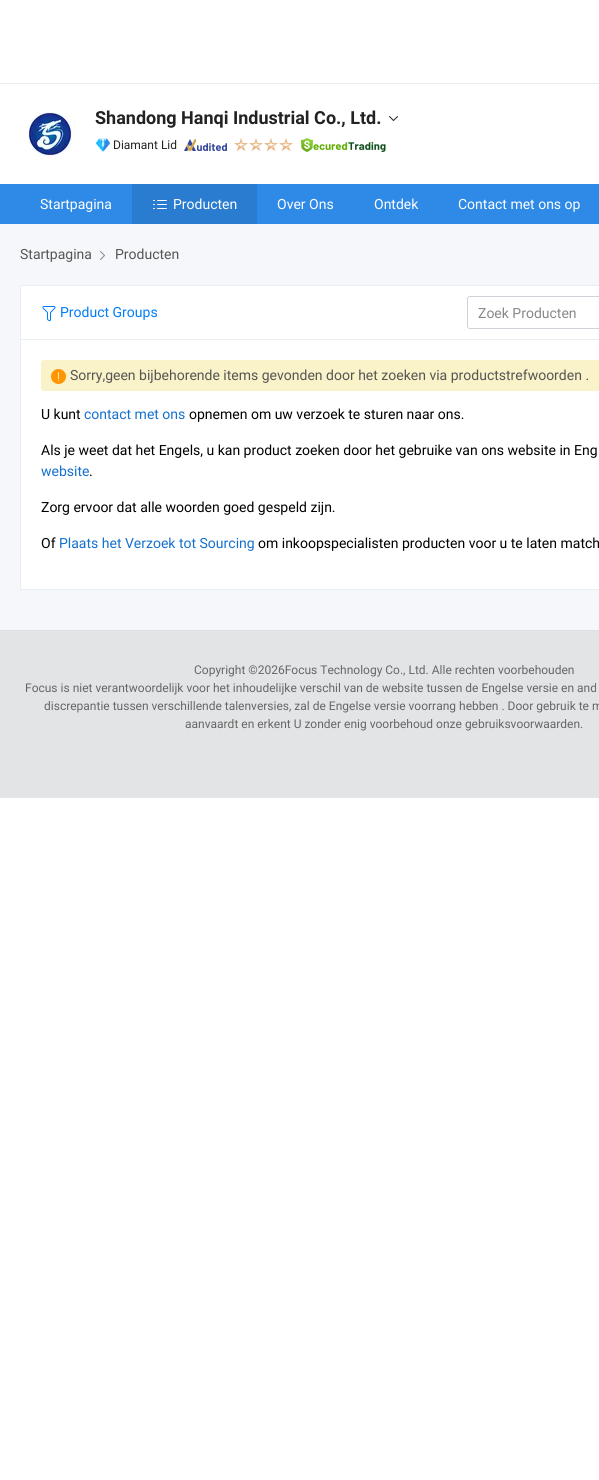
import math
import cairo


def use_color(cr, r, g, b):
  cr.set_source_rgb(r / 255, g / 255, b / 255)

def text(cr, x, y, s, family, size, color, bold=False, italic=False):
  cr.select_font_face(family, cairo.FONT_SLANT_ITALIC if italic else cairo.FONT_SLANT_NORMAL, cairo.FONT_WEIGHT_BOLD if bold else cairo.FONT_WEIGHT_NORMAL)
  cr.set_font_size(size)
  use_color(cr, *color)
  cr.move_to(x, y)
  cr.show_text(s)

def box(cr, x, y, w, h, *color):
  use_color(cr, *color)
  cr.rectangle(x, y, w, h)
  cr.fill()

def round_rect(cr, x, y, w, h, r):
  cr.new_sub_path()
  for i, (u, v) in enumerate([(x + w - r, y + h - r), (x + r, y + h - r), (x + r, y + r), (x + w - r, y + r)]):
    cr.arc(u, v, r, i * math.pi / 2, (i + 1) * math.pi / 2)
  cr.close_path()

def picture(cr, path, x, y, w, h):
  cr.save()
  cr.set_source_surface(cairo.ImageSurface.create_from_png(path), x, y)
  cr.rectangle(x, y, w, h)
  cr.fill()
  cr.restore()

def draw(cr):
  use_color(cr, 255, 255, 255)
  cr.paint()
  box(cr, 0, 83, 599, 1, 230, 236, 242)
  picture(cr, "img_01.png", 28, 112, 48, 48)
  picture(cr, "img_02.png", 389, 116, 9, 5)
  picture(cr, "img_03.png", 96, 138, 14, 14)
  picture(cr, "img_04.png", 184, 139, 43, 12)
  picture(cr, "img_05.png", 234, 138, 14, 14)
  picture(cr, "img_05.png", 249, 138, 14, 14)
  picture(cr, "img_05.png", 264, 138, 14, 14)
  picture(cr, "img_05.png", 279, 138, 14, 14)
  picture(cr, "img_06.png", 301, 138, 85, 14)
  box(cr, 0, 184, 599, 40, 46, 138, 230)
  box(cr, 132, 184, 125, 40, 41, 124, 207)
  picture(cr, "img_07.png", 153, 200, 14, 9)
  box(cr, 0, 224, 599, 406, 245, 247, 250)
  picture(cr, "img_08.png", 100, 251, 5, 9)
  use_color(cr, 255, 255, 255)
  cr.rectangle(20.5, 285.5, 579, 54)
  cr.fill_preserve()
  use_color(cr, 233, 238, 244)
  cr.set_line_width(1)
  cr.stroke()
  picture(cr, "img_09.png", 42, 306, 14, 16)
  cr.new_path()
  cr.move_to(470, 296.5)
  cr.line_to(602.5, 296.5)
  cr.line_to(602.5, 328.5)
  cr.line_to(470, 328.5)
  cr.curve_to(468.5, 328.5, 467.5, 327.5, 467.5, 326)
  cr.line_to(467.5, 299)
  cr.curve_to(467.5, 297.5, 468.5, 296.5, 470, 296.5)
  cr.close_path()
  use_color(cr, 206, 211, 217)
  cr.stroke()
  use_color(cr, 255, 255, 255)
  cr.rectangle(20.5, 339.5, 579, 250)
  cr.fill_preserve()
  use_color(cr, 233, 238, 244)
  cr.stroke()
  use_color(cr, 250, 242, 200)
  round_rect(cr, 41, 360, 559, 31, 3)
  cr.fill()
  picture(cr, "img_10.png", 51, 369, 15, 15)
  box(cr, 0, 631, 599, 167, 227, 228, 230)
  box(cr, 0, 630, 599, 1, 218, 224, 230)
  text(cr, 95, 124, "Shandong Hanqi Industrial Co., Ltd.", "Roboto", 18, (34, 34, 34), bold=True)
  text(cr, 113, 149, "Diamant Lid", "Roboto", 12, (34, 34, 34))
  text(cr, 40, 209, "Startpagina", "Roboto", 14, (255, 255, 255))
  text(cr, 173, 209, "Producten", "Roboto", 14, (255, 255, 255))
  text(cr, 277, 209, "Over Ons", "Roboto", 14, (255, 255, 255))
  text(cr, 374, 209, "Ontdek", "Roboto", 14, (255, 255, 255))
  text(cr, 458, 209, "Contact met ons op", "Roboto", 14, (255, 255, 255))
  text(cr, 20, 259, "Startpagina", "Roboto", 14, (85, 85, 85))
  text(cr, 115, 259, "Producten", "Roboto", 14, (85, 85, 85))
  text(cr, 60, 317, "Product Groups", "Roboto", 14, (0, 125, 250))
  text(cr, 478, 318, "Zoek Producten", "Roboto", 14, (136, 136, 136))
  text(cr, 70, 380, "Sorry,geen bijbehorende items gevonden door het zoeken via productstrefwoorden .", "Roboto", 14, (85, 85, 85))
  text(cr, 41, 419, "U kunt", "Roboto", 14, (0, 0, 0))
  text(cr, 84, 419, "contact met ons", "Roboto", 14, (20, 112, 204))
  text(cr, 189, 419, "opnemen om uw verzoek te sturen naar ons.", "Roboto", 14, (0, 0, 0))
  text(cr, 41, 455, "Als je weet dat het Engels, u kan product zoeken door het gebruike van ons website in Eng", "Roboto", 14, (0, 0, 0))
  text(cr, 41, 476, "website", "Roboto", 14, (20, 112, 204))
  text(cr, 89, 476, ".", "Roboto", 14, (0, 0, 0))
  text(cr, 41, 512, "Zorg ervoor dat alle woorden goed gespeld zijn.", "Roboto", 14, (0, 0, 0))
  text(cr, 41, 548, "Of", "Roboto", 14, (0, 0, 0))
  text(cr, 59, 548, "Plaats het Verzoek tot Sourcing", "Roboto", 14, (20, 112, 204))
  text(cr, 258, 548, "om inkoopspecialisten producten voor u te laten match", "Roboto", 14, (0, 0, 0))
  text(cr, 194, 674, "Copyright ©2026Focus Technology Co., Ltd. Alle rechten voorbehouden", "Roboto", 12, (102, 102, 102))
  text(cr, 25, 692, "Focus is niet verantwoordelijk voor het inhoudelijke verschil van de website tussen de Engelse versie en and", "Roboto", 12, (102, 102, 102))
  text(cr, 44, 710, "discrepantie tussen verschillende talenversies, zal de Engelse versie voorrang hebben . Door gebruik te m", "Roboto", 12, (102, 102, 102))
  text(cr, 185, 728, "aanvaardt en erkent U zonder enig voorbehoud onze gebruiksvoorwaarden.", "Roboto", 12, (102, 102, 102))


surface = cairo.ImageSurface(cairo.FORMAT_RGB24, 599, 1480)
cr = cairo.Context(surface)
options = cairo.FontOptions()
options.set_hint_metrics(cairo.HINT_METRICS_OFF)
options.set_hint_style(cairo.HINT_STYLE_NONE)
cr.set_font_options(options)
cr.set_miter_limit(4)
draw(cr)
surface.write_to_png("out.png")
